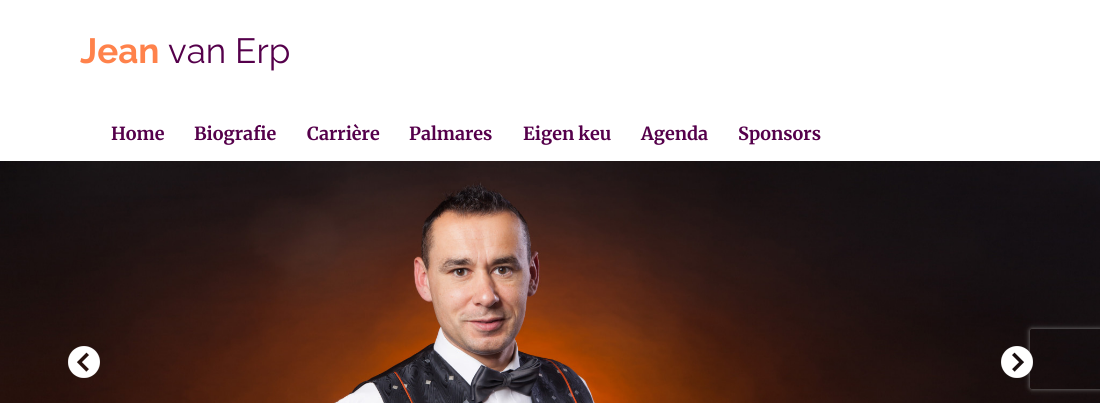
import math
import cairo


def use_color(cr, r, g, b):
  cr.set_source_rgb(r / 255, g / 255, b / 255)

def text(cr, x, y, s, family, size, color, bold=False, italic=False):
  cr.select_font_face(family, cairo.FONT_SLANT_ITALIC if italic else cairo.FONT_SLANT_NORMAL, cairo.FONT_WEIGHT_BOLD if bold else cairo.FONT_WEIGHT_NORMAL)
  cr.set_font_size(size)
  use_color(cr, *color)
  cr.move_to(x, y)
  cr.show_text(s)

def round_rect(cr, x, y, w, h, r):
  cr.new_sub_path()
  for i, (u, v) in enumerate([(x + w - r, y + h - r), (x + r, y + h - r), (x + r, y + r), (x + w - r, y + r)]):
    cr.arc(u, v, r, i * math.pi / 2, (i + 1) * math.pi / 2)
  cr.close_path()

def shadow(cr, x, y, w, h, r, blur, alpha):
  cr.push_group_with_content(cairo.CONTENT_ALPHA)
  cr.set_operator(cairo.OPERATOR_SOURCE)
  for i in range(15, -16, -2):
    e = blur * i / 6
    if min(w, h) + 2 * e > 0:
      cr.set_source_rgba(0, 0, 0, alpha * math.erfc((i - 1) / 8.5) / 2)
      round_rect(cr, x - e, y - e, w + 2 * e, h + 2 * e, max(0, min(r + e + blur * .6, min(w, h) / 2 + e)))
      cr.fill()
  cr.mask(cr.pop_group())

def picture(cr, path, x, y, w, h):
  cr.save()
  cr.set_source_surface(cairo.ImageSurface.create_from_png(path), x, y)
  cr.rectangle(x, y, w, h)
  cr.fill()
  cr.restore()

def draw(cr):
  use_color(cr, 255, 255, 255)
  cr.paint()
  picture(cr, "img_01.png", 0, 161, 1100, 242)
  picture(cr, "img_02.png", 68, 346, 32, 32)
  cr.save()
  cr.set_fill_rule(cairo.FILL_RULE_EVEN_ODD)
  cr.new_path()
  cr.move_to(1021, 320)
  cr.line_to(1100, 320)
  cr.line_to(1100, 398)
  cr.line_to(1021, 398)
  cr.close_path()
  cr.move_to(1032, 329)
  cr.line_to(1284, 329)
  cr.curve_to(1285, 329, 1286, 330, 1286, 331)
  cr.line_to(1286, 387)
  cr.curve_to(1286, 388, 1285, 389, 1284, 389)
  cr.line_to(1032, 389)
  cr.curve_to(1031, 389, 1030, 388, 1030, 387)
  cr.line_to(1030, 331)
  cr.curve_to(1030, 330, 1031, 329, 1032, 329)
  cr.close_path()
  cr.clip()
  use_color(cr, 128, 128, 128)
  shadow(cr, 1030, 329, 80, 60, 2, 2.5, 1)
  cr.restore()
  picture(cr, "img_03.png", 1001, 346, 32, 32)
  text(cr, 80, 63, "Jean", "Raleway", 35, (255, 130, 75), bold=True)
  text(cr, 168, 63, "van Erp", "Raleway", 35, (85, 0, 75))
  text(cr, 111, 140, "Home", "Merriweather", 18, (85, 0, 75), bold=True)
  text(cr, 194, 140, "Biografie", "Merriweather", 18, (85, 0, 75), bold=True)
  text(cr, 307, 140, "Carrière", "Merriweather", 18, (85, 0, 75), bold=True)
  text(cr, 409, 140, "Palmares", "Merriweather", 18, (85, 0, 75), bold=True)
  text(cr, 523, 140, "Eigen keu", "Merriweather", 18, (85, 0, 75), bold=True)
  text(cr, 641, 140, "Agenda", "Merriweather", 18, (85, 0, 75), bold=True)
  text(cr, 738, 140, "Sponsors", "Merriweather", 18, (85, 0, 75), bold=True)


surface = cairo.ImageSurface(cairo.FORMAT_RGB24, 1100, 403)
cr = cairo.Context(surface)
options = cairo.FontOptions()
options.set_hint_metrics(cairo.HINT_METRICS_OFF)
options.set_hint_style(cairo.HINT_STYLE_NONE)
cr.set_font_options(options)
cr.set_miter_limit(4)
draw(cr)
surface.write_to_png("out.png")
